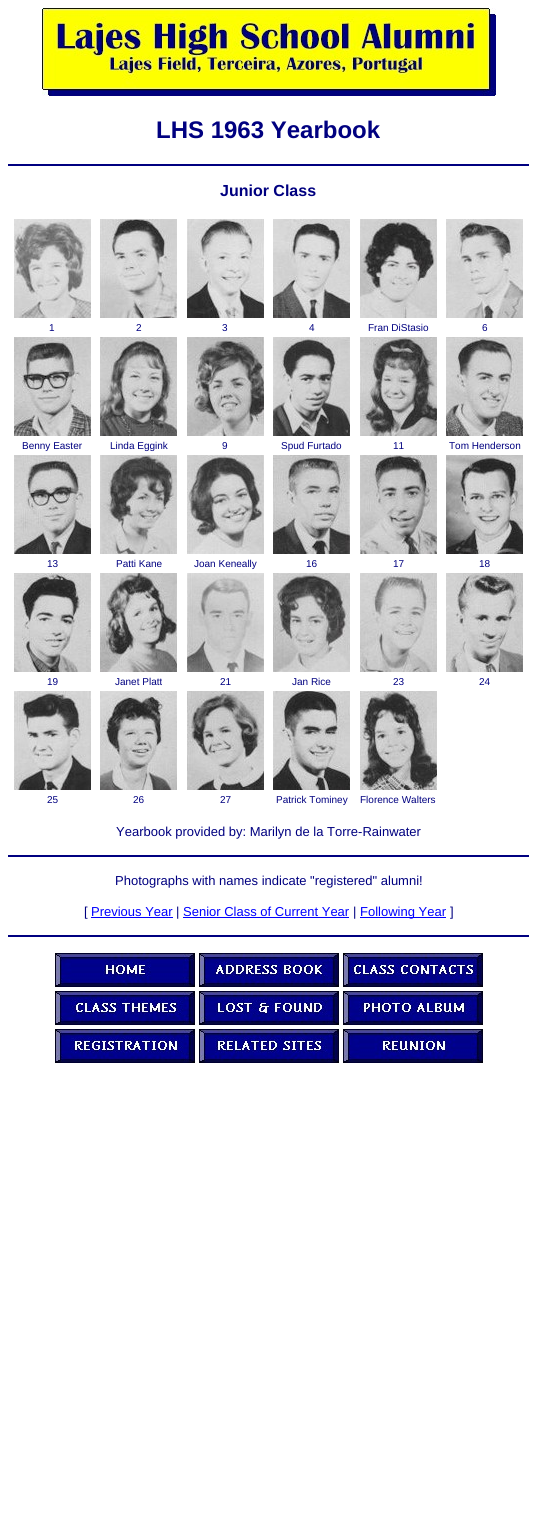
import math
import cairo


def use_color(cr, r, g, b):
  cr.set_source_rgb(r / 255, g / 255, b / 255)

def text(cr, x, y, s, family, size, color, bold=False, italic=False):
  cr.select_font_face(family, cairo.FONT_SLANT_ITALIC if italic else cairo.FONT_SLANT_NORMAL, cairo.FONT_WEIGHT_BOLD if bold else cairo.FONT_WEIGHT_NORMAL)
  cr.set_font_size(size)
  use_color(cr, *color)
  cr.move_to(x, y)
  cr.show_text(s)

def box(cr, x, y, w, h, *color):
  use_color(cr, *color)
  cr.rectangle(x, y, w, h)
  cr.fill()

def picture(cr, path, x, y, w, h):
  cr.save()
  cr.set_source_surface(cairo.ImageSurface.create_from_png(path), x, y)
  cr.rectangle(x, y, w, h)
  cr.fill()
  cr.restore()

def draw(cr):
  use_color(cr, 255, 255, 255)
  cr.paint()
  picture(cr, "img_01.png", 42, 8, 454, 88)
  box(cr, 8, 164, 521, 2, 0, 0, 128)
  picture(cr, "img_02.png", 14, 219, 77, 99)
  picture(cr, "img_03.png", 100, 219, 77, 99)
  picture(cr, "img_04.png", 187, 219, 77, 99)
  picture(cr, "img_05.png", 273, 219, 77, 99)
  picture(cr, "img_06.png", 360, 219, 77, 99)
  picture(cr, "img_07.png", 446, 219, 77, 99)
  picture(cr, "img_08.png", 14, 337, 77, 99)
  picture(cr, "img_09.png", 100, 337, 77, 99)
  picture(cr, "img_10.png", 187, 337, 77, 99)
  picture(cr, "img_11.png", 273, 337, 77, 99)
  picture(cr, "img_12.png", 360, 337, 77, 99)
  picture(cr, "img_13.png", 446, 337, 77, 99)
  picture(cr, "img_14.png", 14, 455, 77, 99)
  picture(cr, "img_15.png", 100, 455, 77, 99)
  picture(cr, "img_16.png", 187, 455, 77, 99)
  picture(cr, "img_17.png", 273, 455, 77, 99)
  picture(cr, "img_18.png", 360, 455, 77, 99)
  picture(cr, "img_19.png", 446, 455, 77, 99)
  picture(cr, "img_20.png", 14, 573, 77, 99)
  picture(cr, "img_21.png", 100, 573, 77, 99)
  picture(cr, "img_22.png", 187, 573, 77, 99)
  picture(cr, "img_23.png", 273, 573, 77, 99)
  picture(cr, "img_24.png", 360, 573, 77, 99)
  picture(cr, "img_25.png", 446, 573, 77, 99)
  picture(cr, "img_26.png", 14, 691, 77, 99)
  picture(cr, "img_27.png", 100, 691, 77, 99)
  picture(cr, "img_28.png", 187, 691, 77, 99)
  picture(cr, "img_29.png", 273, 691, 77, 99)
  picture(cr, "img_30.png", 360, 691, 77, 99)
  box(cr, 8, 855, 521, 2, 0, 0, 128)
  box(cr, 91, 917, 82, 1, 0, 0, 255)
  box(cr, 183, 917, 166, 1, 0, 0, 255)
  box(cr, 360, 917, 86, 1, 0, 0, 255)
  box(cr, 8, 935, 521, 2, 0, 0, 128)
  picture(cr, "img_31.png", 55, 953, 140, 34)
  picture(cr, "img_32.png", 199, 953, 140, 34)
  picture(cr, "img_33.png", 343, 953, 140, 34)
  picture(cr, "img_34.png", 55, 991, 140, 34)
  picture(cr, "img_35.png", 199, 991, 140, 34)
  picture(cr, "img_36.png", 343, 991, 140, 34)
  picture(cr, "img_37.png", 55, 1029, 140, 34)
  picture(cr, "img_38.png", 199, 1029, 140, 34)
  picture(cr, "img_39.png", 343, 1029, 140, 34)
  text(cr, 156, 138, "LHS 1963 Yearbook", "Liberation Sans", 24, (0, 0, 128), bold=True)
  text(cr, 220, 196, "Junior Class", "Liberation Sans", 16, (0, 0, 128), bold=True)
  text(cr, 49, 331, "1", "Liberation Sans", 10, (0, 0, 128))
  text(cr, 136, 331, "2", "Liberation Sans", 10, (0, 0, 128))
  text(cr, 222, 331, "3", "Liberation Sans", 10, (0, 0, 128))
  text(cr, 309, 331, "4", "Liberation Sans", 10, (0, 0, 128))
  text(cr, 368, 331, "Fran DiStasio", "Liberation Sans", 10, (0, 0, 128))
  text(cr, 482, 331, "6", "Liberation Sans", 10, (0, 0, 128))
  text(cr, 22, 449, "Benny Easter", "Liberation Sans", 10, (0, 0, 128))
  text(cr, 110, 449, "Linda Eggink", "Liberation Sans", 10, (0, 0, 128))
  text(cr, 222, 449, "9", "Liberation Sans", 10, (0, 0, 128))
  text(cr, 281, 449, "Spud Furtado", "Liberation Sans", 10, (0, 0, 128))
  text(cr, 393, 449, "11", "Liberation Sans", 10, (0, 0, 128))
  text(cr, 449, 449, "Tom Henderson", "Liberation Sans", 10, (0, 0, 128))
  text(cr, 47, 567, "13", "Liberation Sans", 10, (0, 0, 128))
  text(cr, 116, 567, "Patti Kane", "Liberation Sans", 10, (0, 0, 128))
  text(cr, 194, 567, "Joan Keneally", "Liberation Sans", 10, (0, 0, 128))
  text(cr, 306, 567, "16", "Liberation Sans", 10, (0, 0, 128))
  text(cr, 393, 567, "17", "Liberation Sans", 10, (0, 0, 128))
  text(cr, 479, 567, "18", "Liberation Sans", 10, (0, 0, 128))
  text(cr, 47, 685, "19", "Liberation Sans", 10, (0, 0, 128))
  text(cr, 115, 685, "Janet Platt", "Liberation Sans", 10, (0, 0, 128))
  text(cr, 220, 685, "21", "Liberation Sans", 10, (0, 0, 128))
  text(cr, 292, 685, "Jan Rice", "Liberation Sans", 10, (0, 0, 128))
  text(cr, 393, 685, "23", "Liberation Sans", 10, (0, 0, 128))
  text(cr, 479, 685, "24", "Liberation Sans", 10, (0, 0, 128))
  text(cr, 47, 803, "25", "Liberation Sans", 10, (0, 0, 128))
  text(cr, 133, 803, "26", "Liberation Sans", 10, (0, 0, 128))
  text(cr, 220, 803, "27", "Liberation Sans", 10, (0, 0, 128))
  text(cr, 276, 803, "Patrick Tominey", "Liberation Sans", 10, (0, 0, 128))
  text(cr, 360, 803, "Florence Walters", "Liberation Sans", 10, (0, 0, 128))
  text(cr, 116, 836, "Yearbook provided by: Marilyn de la Torre-Rainwater", "Liberation Sans", 13, (0, 0, 128))
  text(cr, 115, 885, "Photographs with names indicate \"registered\" alumni!", "Liberation Sans", 13, (0, 0, 128))
  text(cr, 84, 916, "[", "Liberation Sans", 13, (0, 0, 128))
  text(cr, 91, 916, "Previous Year", "Liberation Sans", 13, (0, 0, 255))
  text(cr, 176, 916, "|", "Liberation Sans", 13, (0, 0, 128))
  text(cr, 183, 916, "Senior Class of Current Year", "Liberation Sans", 13, (0, 0, 255))
  text(cr, 353, 916, "|", "Liberation Sans", 13, (0, 0, 128))
  text(cr, 360, 916, "Following Year", "Liberation Sans", 13, (0, 0, 255))
  text(cr, 450, 916, "]", "Liberation Sans", 13, (0, 0, 128))


surface = cairo.ImageSurface(cairo.FORMAT_RGB24, 537, 1514)
cr = cairo.Context(surface)
options = cairo.FontOptions()
options.set_hint_metrics(cairo.HINT_METRICS_OFF)
options.set_hint_style(cairo.HINT_STYLE_NONE)
cr.set_font_options(options)
cr.set_miter_limit(4)
draw(cr)
surface.write_to_png("out.png")
